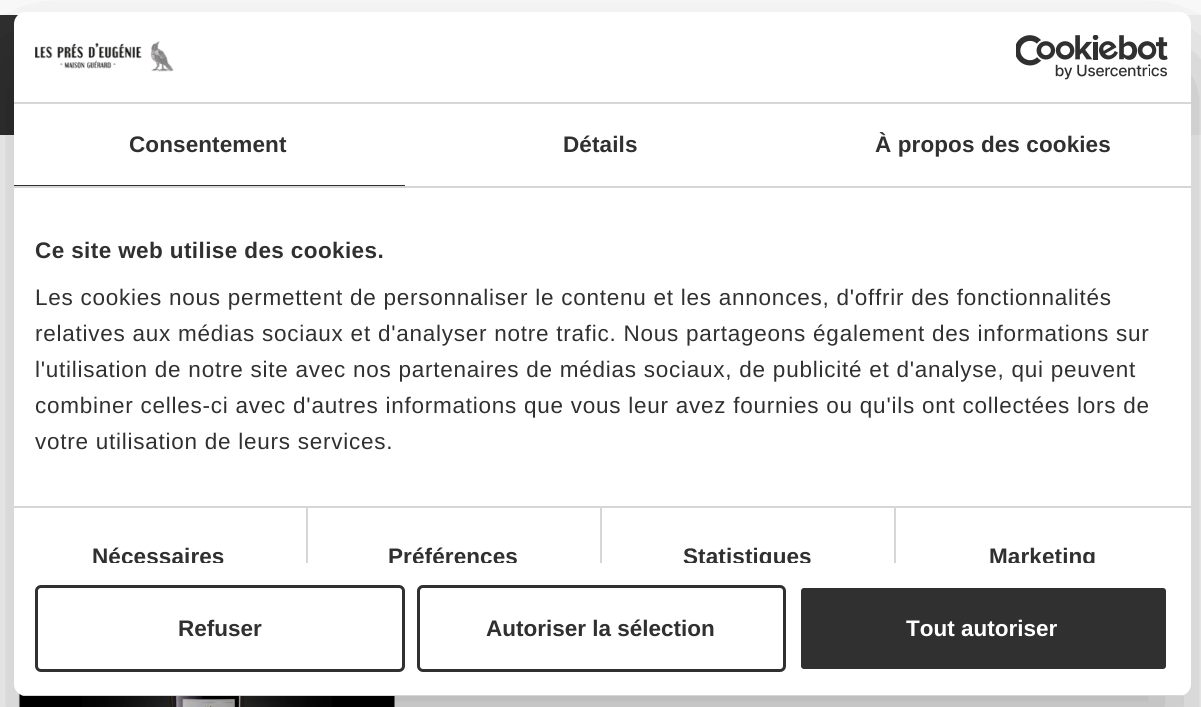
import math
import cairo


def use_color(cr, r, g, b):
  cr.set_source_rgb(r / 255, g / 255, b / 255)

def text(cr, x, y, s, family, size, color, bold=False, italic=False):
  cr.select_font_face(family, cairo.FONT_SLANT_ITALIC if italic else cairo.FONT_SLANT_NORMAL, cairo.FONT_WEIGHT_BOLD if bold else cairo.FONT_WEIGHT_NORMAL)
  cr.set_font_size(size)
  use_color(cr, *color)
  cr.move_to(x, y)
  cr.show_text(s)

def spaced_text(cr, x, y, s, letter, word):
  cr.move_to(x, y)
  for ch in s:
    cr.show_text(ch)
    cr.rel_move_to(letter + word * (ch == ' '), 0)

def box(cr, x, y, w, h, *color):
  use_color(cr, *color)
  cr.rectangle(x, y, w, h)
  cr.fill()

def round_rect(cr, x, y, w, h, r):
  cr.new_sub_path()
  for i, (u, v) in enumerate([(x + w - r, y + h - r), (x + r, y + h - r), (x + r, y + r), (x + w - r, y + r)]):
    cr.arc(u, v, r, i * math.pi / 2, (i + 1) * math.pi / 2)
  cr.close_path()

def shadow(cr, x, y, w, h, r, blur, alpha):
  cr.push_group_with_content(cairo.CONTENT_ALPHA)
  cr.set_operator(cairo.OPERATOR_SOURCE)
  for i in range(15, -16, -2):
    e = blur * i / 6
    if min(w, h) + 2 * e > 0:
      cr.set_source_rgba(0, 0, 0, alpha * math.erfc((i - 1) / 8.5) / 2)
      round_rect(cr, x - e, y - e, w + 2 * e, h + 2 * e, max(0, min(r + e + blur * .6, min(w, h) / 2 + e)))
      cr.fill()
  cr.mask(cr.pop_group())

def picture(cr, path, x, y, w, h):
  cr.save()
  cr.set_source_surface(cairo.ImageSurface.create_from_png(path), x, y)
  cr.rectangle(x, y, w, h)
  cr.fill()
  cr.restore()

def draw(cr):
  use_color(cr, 255, 255, 255)
  cr.paint()
  box(cr, 1186, 15, 15, 120, 245, 245, 245)
  box(cr, 0, 15, 19, 120, 48, 48, 48)
  cr.rectangle(19, 525, 1164, 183)
  use_color(cr, 245, 245, 245)
  cr.stroke()
  picture(cr, "img_03.png", 19, 693, 376, 14)
  use_color(cr, 0, 0, 0)
  shadow(cr, 14, 60, 1177, 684, 12, 51, 0.3)
  use_color(cr, 255, 255, 255)
  round_rect(cr, 14, 12, 1177, 684, 12)
  cr.fill()
  box(cr, 14, 102, 1177, 2, 214, 214, 214)
  picture(cr, "img_01.png", 35, 41, 139, 31)
  picture(cr, "img_02.png", 1016, 35, 152, 45)
  box(cr, 14, 186, 1177, 2, 214, 214, 214)
  box(cr, 14, 185, 391, 1, 48, 48, 48)
  box(cr, 306, 507, 2, 56, 214, 214, 214)
  box(cr, 600, 507, 2, 56, 214, 214, 214)
  box(cr, 894, 507, 2, 56, 214, 214, 214)
  box(cr, 14, 506, 1177, 2, 214, 214, 214)
  cr.save()
  round_rect(cr, 14, 12, 1177, 684, 12)
  cr.clip()
  box(cr, 14, 695, 1177, 1, 214, 214, 214)
  cr.restore()
  round_rect(cr, 36.5, 586.5, 367, 84, 4.5)
  use_color(cr, 48, 48, 48)
  cr.set_line_width(3)
  cr.stroke()
  round_rect(cr, 418.5, 586.5, 366, 84, 4.5)
  cr.stroke()
  round_rect(cr, 799.5, 586.5, 368, 84, 4.5)
  cr.fill_preserve()
  use_color(cr, 255, 255, 255)
  cr.stroke()
  cr.select_font_face("Liberation Sans", cairo.FONT_SLANT_NORMAL, cairo.FONT_WEIGHT_BOLD)
  cr.set_font_size(22.5)
  use_color(cr, 48, 48, 48)
  spaced_text(cr, 129, 152, "Consentement", 0.1, 0)
  spaced_text(cr, 563, 152, "Détails", 0.1, 0)
  spaced_text(cr, 875, 152, "À propos des cookies", 0.1, 0)
  spaced_text(cr, 35, 258, "Ce site web utilise des cookies.", 0.4, 0)
  cr.select_font_face("Liberation Sans")
  spaced_text(cr, 35, 305, "Les cookies nous permettent de personnaliser le contenu et les annonces, d'offrir des fonctionnalités", 0.75, 0)
  spaced_text(cr, 35, 341, "relatives aux médias sociaux et d'analyser notre trafic. Nous partageons également des informations sur", 0.75, 0)
  spaced_text(cr, 35, 377, "l'utilisation de notre site avec nos partenaires de médias sociaux, de publicité et d'analyse, qui peuvent", 0.75, 0)
  spaced_text(cr, 35, 413, "combiner celles-ci avec d'autres informations que vous leur avez fournies ou qu'ils ont collectées lors de", 0.75, 0)
  spaced_text(cr, 35, 449, "votre utilisation de leurs services.", 0.75, 0)
  cr.save()
  cr.rectangle(14, 188, 1177, 375)
  cr.clip()
  cr.select_font_face("Liberation Sans", cairo.FONT_SLANT_NORMAL, cairo.FONT_WEIGHT_BOLD)
  spaced_text(cr, 92, 564, "Nécessaires", 0.1, 0)
  spaced_text(cr, 388, 564, "Préférences", 0.1, 0)
  spaced_text(cr, 683, 564, "Statistiques", 0.1, 0)
  spaced_text(cr, 989, 564, "Marketing", 0.1, 0)
  cr.restore()
  text(cr, 178, 636, "Refuser", "Liberation Sans", 22.5, (48, 48, 48), bold=True)
  text(cr, 486, 636, "Autoriser la sélection", "Liberation Sans", 22.5, (48, 48, 48), bold=True)
  text(cr, 906, 636, "Tout autoriser", "Liberation Sans", 22.5, (255, 255, 255), bold=True)


surface = cairo.ImageSurface(cairo.FORMAT_RGB24, 1201, 707)
cr = cairo.Context(surface)
options = cairo.FontOptions()
options.set_hint_metrics(cairo.HINT_METRICS_OFF)
options.set_hint_style(cairo.HINT_STYLE_NONE)
cr.set_font_options(options)
cr.set_miter_limit(4)
draw(cr)
surface.write_to_png("out.png")
